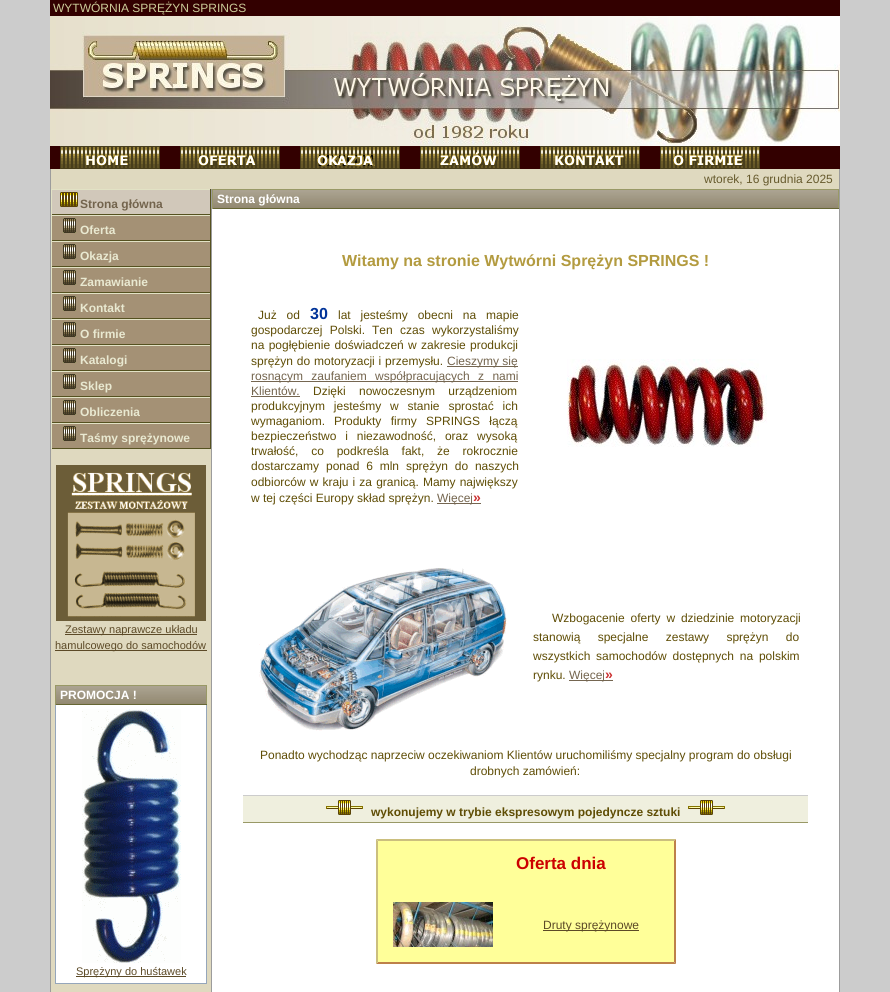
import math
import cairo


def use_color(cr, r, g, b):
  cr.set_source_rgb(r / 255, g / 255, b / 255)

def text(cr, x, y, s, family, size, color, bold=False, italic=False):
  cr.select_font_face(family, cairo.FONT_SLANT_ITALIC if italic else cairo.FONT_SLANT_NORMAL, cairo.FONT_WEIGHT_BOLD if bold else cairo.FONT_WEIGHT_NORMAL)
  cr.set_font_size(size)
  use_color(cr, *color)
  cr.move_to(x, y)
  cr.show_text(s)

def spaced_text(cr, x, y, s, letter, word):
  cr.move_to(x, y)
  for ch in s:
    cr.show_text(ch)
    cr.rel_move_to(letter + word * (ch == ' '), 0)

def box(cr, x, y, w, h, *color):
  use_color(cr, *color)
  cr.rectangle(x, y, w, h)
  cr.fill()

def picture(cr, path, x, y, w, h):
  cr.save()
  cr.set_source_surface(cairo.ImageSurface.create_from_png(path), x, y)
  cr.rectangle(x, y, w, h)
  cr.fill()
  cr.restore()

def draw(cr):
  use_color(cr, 204, 204, 204)
  cr.paint()
  box(cr, 50, 0, 790, 16, 51, 0, 0)
  picture(cr, "img_01.png", 50, 16, 790, 130)
  box(cr, 50, 146, 790, 23, 51, 0, 0)
  picture(cr, "img_02.png", 60, 146, 100, 23)
  picture(cr, "img_03.png", 180, 146, 100, 23)
  picture(cr, "img_04.png", 300, 146, 100, 23)
  picture(cr, "img_05.png", 420, 146, 100, 23)
  picture(cr, "img_06.png", 540, 146, 100, 23)
  picture(cr, "img_07.png", 660, 146, 100, 23)
  box(cr, 50, 169, 1, 823, 156, 156, 156)
  box(cr, 51, 169, 788, 20, 223, 217, 191)
  box(cr, 839, 169, 1, 823, 156, 156, 156)
  box(cr, 51, 449, 160, 543, 223, 217, 191)
  box(cr, 52, 190, 158, 24, 209, 200, 186)
  box(cr, 51, 189, 160, 1, 226, 226, 197)
  box(cr, 210, 189, 1, 26, 85, 81, 32)
  box(cr, 51, 214, 160, 1, 85, 81, 32)
  box(cr, 51, 189, 1, 26, 226, 226, 197)
  picture(cr, "img_08.png", 60, 192, 18, 15)
  box(cr, 52, 216, 158, 24, 164, 145, 117)
  box(cr, 51, 215, 160, 1, 226, 226, 197)
  box(cr, 210, 215, 1, 26, 85, 81, 32)
  box(cr, 51, 240, 160, 1, 85, 81, 32)
  box(cr, 51, 215, 1, 26, 226, 226, 197)
  picture(cr, "img_09.png", 63, 218, 13, 15)
  box(cr, 52, 242, 158, 24, 164, 145, 117)
  box(cr, 51, 241, 160, 1, 226, 226, 197)
  box(cr, 210, 241, 1, 26, 85, 81, 32)
  box(cr, 51, 266, 160, 1, 85, 81, 32)
  box(cr, 51, 241, 1, 26, 226, 226, 197)
  picture(cr, "img_09.png", 63, 244, 13, 15)
  box(cr, 52, 268, 158, 24, 164, 145, 117)
  box(cr, 51, 267, 160, 1, 226, 226, 197)
  box(cr, 210, 267, 1, 26, 85, 81, 32)
  box(cr, 51, 292, 160, 1, 85, 81, 32)
  box(cr, 51, 267, 1, 26, 226, 226, 197)
  picture(cr, "img_09.png", 63, 270, 13, 15)
  box(cr, 52, 294, 158, 24, 164, 145, 117)
  box(cr, 51, 293, 160, 1, 226, 226, 197)
  box(cr, 210, 293, 1, 26, 85, 81, 32)
  box(cr, 51, 318, 160, 1, 85, 81, 32)
  box(cr, 51, 293, 1, 26, 226, 226, 197)
  picture(cr, "img_09.png", 63, 296, 13, 15)
  box(cr, 52, 320, 158, 24, 164, 145, 117)
  box(cr, 51, 319, 160, 1, 226, 226, 197)
  box(cr, 210, 319, 1, 26, 85, 81, 32)
  box(cr, 51, 344, 160, 1, 85, 81, 32)
  box(cr, 51, 319, 1, 26, 226, 226, 197)
  picture(cr, "img_09.png", 63, 322, 13, 15)
  box(cr, 52, 346, 158, 24, 164, 145, 117)
  box(cr, 51, 345, 160, 1, 226, 226, 197)
  box(cr, 210, 345, 1, 26, 85, 81, 32)
  box(cr, 51, 370, 160, 1, 85, 81, 32)
  box(cr, 51, 345, 1, 26, 226, 226, 197)
  picture(cr, "img_09.png", 63, 348, 13, 15)
  box(cr, 52, 372, 158, 24, 164, 145, 117)
  box(cr, 51, 371, 160, 1, 226, 226, 197)
  box(cr, 210, 371, 1, 26, 85, 81, 32)
  box(cr, 51, 396, 160, 1, 85, 81, 32)
  box(cr, 51, 371, 1, 26, 226, 226, 197)
  picture(cr, "img_09.png", 63, 374, 13, 15)
  box(cr, 52, 398, 158, 24, 164, 145, 117)
  box(cr, 51, 397, 160, 1, 226, 226, 197)
  box(cr, 210, 397, 1, 26, 85, 81, 32)
  box(cr, 51, 422, 160, 1, 85, 81, 32)
  box(cr, 51, 397, 1, 26, 226, 226, 197)
  picture(cr, "img_09.png", 63, 400, 13, 15)
  box(cr, 52, 424, 158, 24, 164, 145, 117)
  box(cr, 51, 423, 160, 1, 226, 226, 197)
  box(cr, 210, 423, 1, 26, 85, 81, 32)
  box(cr, 51, 448, 160, 1, 85, 81, 32)
  box(cr, 51, 423, 1, 26, 226, 226, 197)
  picture(cr, "img_09.png", 63, 426, 13, 15)
  picture(cr, "img_10.png", 56, 465, 150, 156)
  box(cr, 65, 634, 132, 1, 92, 74, 39)
  box(cr, 55, 650, 152, 1, 92, 74, 39)
  picture(cr, "img_11.png", 56, 686, 150, 18)
  box(cr, 55, 685, 152, 1, 153, 153, 102)
  box(cr, 206, 685, 1, 20, 153, 153, 102)
  box(cr, 55, 704, 152, 1, 102, 102, 51)
  box(cr, 55, 685, 1, 20, 153, 153, 102)
  box(cr, 56, 705, 150, 278, 255, 255, 255)
  box(cr, 206, 705, 1, 279, 149, 166, 187)
  box(cr, 55, 983, 152, 1, 149, 166, 187)
  box(cr, 55, 705, 1, 279, 149, 166, 187)
  picture(cr, "img_12.png", 82, 709, 99, 254)
  box(cr, 76, 976, 110, 1, 92, 74, 39)
  box(cr, 211, 189, 1, 803, 156, 156, 156)
  box(cr, 212, 209, 627, 783, 255, 255, 255)
  picture(cr, "img_13.png", 213, 190, 625, 18)
  box(cr, 212, 189, 627, 1, 153, 153, 102)
  box(cr, 838, 189, 1, 20, 153, 153, 102)
  box(cr, 212, 208, 627, 1, 102, 102, 51)
  box(cr, 212, 189, 1, 20, 153, 153, 102)
  box(cr, 447, 366, 71, 1, 117, 102, 81)
  box(cr, 251, 381, 267, 1, 117, 102, 81)
  box(cr, 251, 396, 49, 1, 117, 102, 81)
  box(cr, 437, 503, 44, 1, 117, 102, 81)
  picture(cr, "img_14.png", 567, 359, 200, 88)
  picture(cr, "img_15.png", 259, 568, 248, 163)
  box(cr, 569, 680, 44, 1, 117, 102, 81)
  box(cr, 243, 796, 565, 26, 239, 239, 222)
  box(cr, 243, 795, 565, 1, 204, 204, 204)
  box(cr, 243, 822, 565, 1, 153, 153, 102)
  picture(cr, "img_16.png", 326, 800, 37, 15)
  picture(cr, "img_16.png", 688, 800, 37, 15)
  use_color(cr, 203, 191, 126)
  cr.new_path()
  cr.move_to(376, 839)
  cr.line_to(676, 839)
  cr.line_to(674, 841)
  cr.line_to(378, 841)
  cr.close_path()
  cr.fill()
  use_color(cr, 189, 129, 74)
  cr.new_path()
  cr.move_to(676, 839)
  cr.line_to(676, 964)
  cr.line_to(674, 962)
  cr.line_to(674, 841)
  cr.close_path()
  cr.fill()
  cr.new_path()
  cr.move_to(676, 964)
  cr.line_to(376, 964)
  cr.line_to(378, 962)
  cr.line_to(674, 962)
  cr.close_path()
  cr.fill()
  use_color(cr, 203, 191, 126)
  cr.new_path()
  cr.move_to(376, 964)
  cr.line_to(376, 839)
  cr.line_to(378, 841)
  cr.line_to(378, 962)
  cr.close_path()
  cr.fill()
  box(cr, 378, 841, 296, 46, 255, 255, 153)
  box(cr, 378, 887, 296, 75, 255, 255, 153)
  picture(cr, "img_17.png", 393, 902, 100, 45)
  box(cr, 543, 930, 96, 1, 92, 74, 39)
  text(cr, 53, 12, "WYTWÓRNIA SPRĘŻYN SPRINGS", "Liberation Sans", 12, (204, 204, 153))
  text(cr, 704, 183, "wtorek, 16 grudnia 2025", "Liberation Sans", 12, (102, 90, 45))
  text(cr, 80, 208, "Strona główna", "Liberation Sans", 12, (115, 100, 77), bold=True)
  text(cr, 80, 234, "Oferta", "Liberation Sans", 12, (233, 233, 209), bold=True)
  text(cr, 80, 260, "Okazja", "Liberation Sans", 12, (233, 233, 209), bold=True)
  text(cr, 80, 286, "Zamawianie", "Liberation Sans", 12, (233, 233, 209), bold=True)
  text(cr, 80, 312, "Kontakt", "Liberation Sans", 12, (233, 233, 209), bold=True)
  text(cr, 80, 338, "O firmie", "Liberation Sans", 12, (233, 233, 209), bold=True)
  text(cr, 80, 364, "Katalogi", "Liberation Sans", 12, (233, 233, 209), bold=True)
  text(cr, 80, 390, "Sklep", "Liberation Sans", 12, (233, 233, 209), bold=True)
  text(cr, 80, 416, "Obliczenia", "Liberation Sans", 12, (233, 233, 209), bold=True)
  text(cr, 80, 442, "Taśmy sprężynowe", "Liberation Sans", 12, (233, 233, 209), bold=True)
  text(cr, 65, 633, "Zestawy naprawcze układu", "Liberation Sans", 11, (92, 74, 39))
  text(cr, 55, 649, "hamulcowego do samochodów", "Liberation Sans", 11, (92, 74, 39))
  text(cr, 60, 699, "PROMOCJA !", "Liberation Sans", 12, (255, 255, 255), bold=True)
  text(cr, 76, 975, "Sprężyny do huśtawek", "Liberation Sans", 11, (92, 74, 39))
  text(cr, 217, 203, "Strona główna", "Liberation Sans", 12, (255, 255, 255), bold=True)
  text(cr, 342, 266, "Witamy na stronie Wytwórni Sprężyn SPRINGS !", "Liberation Sans", 16, (179, 155, 64), bold=True)
  cr.select_font_face("Liberation Sans")
  cr.set_font_size(12)
  use_color(cr, 95, 77, 5)
  spaced_text(cr, 258, 319, "Już od", 0, 6.5)
  text(cr, 310, 319, "30", "Liberation Sans", 16, (0, 51, 153), bold=True)
  cr.select_font_face("Liberation Sans")
  cr.set_font_size(12)
  use_color(cr, 95, 77, 5)
  spaced_text(cr, 338, 319, "lat jesteśmy obecni na mapie", 0, 6.5)
  spaced_text(cr, 251, 334, "gospodarczej Polski.", 0, 4)
  spaced_text(cr, 372, 334, "Ten czas wykorzystaliśmy", 0, 4)
  spaced_text(cr, 251, 349, "na pogłębienie doświadczeń w zakresie", 0, 1)
  text(cr, 470, 349, "produkcji", "Liberation Sans", 12, (95, 77, 5))
  spaced_text(cr, 251, 365, "sprężyn do motoryzacji i przemysłu.", 0, 0.5)
  text(cr, 447, 365, "Cieszymy się", "Liberation Sans", 12, (115, 100, 77))
  spaced_text(cr, 251, 380, "rosnącym zaufaniem współpracujących z nami", 0, 5)
  text(cr, 251, 395, "Klientów.", "Liberation Sans", 12, (115, 100, 77))
  use_color(cr, 95, 77, 5)
  spaced_text(cr, 313, 395, "Dzięki nowoczesnym urządzeniom", 0, 10)
  spaced_text(cr, 251, 410, "produkcyjnym jesteśmy w stanie sprostać ich", 0, 5.5)
  text(cr, 251, 425, "wymaganiom.", "Liberation Sans", 12, (95, 77, 5))
  spaced_text(cr, 334, 425, "Produkty firmy SPRINGS łączą", 0, 6)
  spaced_text(cr, 251, 440, "bezpieczeństwo i niezawodność, oraz wysoką", 0, 5.5)
  spaced_text(cr, 251, 455, "trwałość, co podkreśla fakt, że rokrocznie", 0, 9.5)
  text(cr, 251, 470, "dostarczamy", "Liberation Sans", 12, (95, 77, 5))
  spaced_text(cr, 326, 470, "ponad 6 mln sprężyn do naszych", 0, 3.5)
  spaced_text(cr, 251, 486, "odbiorców w kraju i za granicą. Mamy największy", 0, 0.75)
  text(cr, 251, 502, "w tej części Europy skład sprężyn.", "Liberation Sans", 12, (95, 77, 5))
  text(cr, 437, 502, "Więcej", "Liberation Sans", 12, (115, 100, 77))
  text(cr, 473, 502, "»", "Liberation Sans", 14, (204, 51, 51), bold=True)
  cr.select_font_face("Liberation Sans")
  cr.set_font_size(12)
  use_color(cr, 95, 77, 5)
  spaced_text(cr, 552, 622, "Wzbogacenie oferty w dziedzinie motoryzacji", 0, 2.5)
  spaced_text(cr, 533, 641, "stanowią specjalne zestawy sprężyn do", 0, 14)
  text(cr, 533, 660, "wszystkich", "Liberation Sans", 12, (95, 77, 5))
  spaced_text(cr, 596, 660, "samochodów dostępnych na polskim", 0, 2.5)
  text(cr, 533, 679, "rynku.", "Liberation Sans", 12, (95, 77, 5))
  text(cr, 569, 679, "Więcej", "Liberation Sans", 12, (115, 100, 77))
  text(cr, 605, 679, "»", "Liberation Sans", 14, (204, 51, 51), bold=True)
  text(cr, 260, 759, "Ponadto wychodząc naprzeciw oczekiwaniom Klientów uruchomiliśmy specjalny program do obsługi", "Liberation Sans", 12, (95, 77, 5))
  text(cr, 470, 775, "drobnych zamówień:", "Liberation Sans", 12, (95, 77, 5))
  text(cr, 371, 816, "wykonujemy w trybie ekspresowym pojedyncze sztuki", "Liberation Sans", 12, (95, 77, 5), bold=True)
  text(cr, 516, 869, "Oferta dnia", "Liberation Sans", 17, (204, 0, 0), bold=True)
  text(cr, 543, 929, "Druty sprężynowe", "Liberation Sans", 12, (92, 74, 39))


surface = cairo.ImageSurface(cairo.FORMAT_RGB24, 890, 992)
cr = cairo.Context(surface)
options = cairo.FontOptions()
options.set_hint_metrics(cairo.HINT_METRICS_OFF)
options.set_hint_style(cairo.HINT_STYLE_NONE)
cr.set_font_options(options)
cr.set_miter_limit(4)
draw(cr)
surface.write_to_png("out.png")
